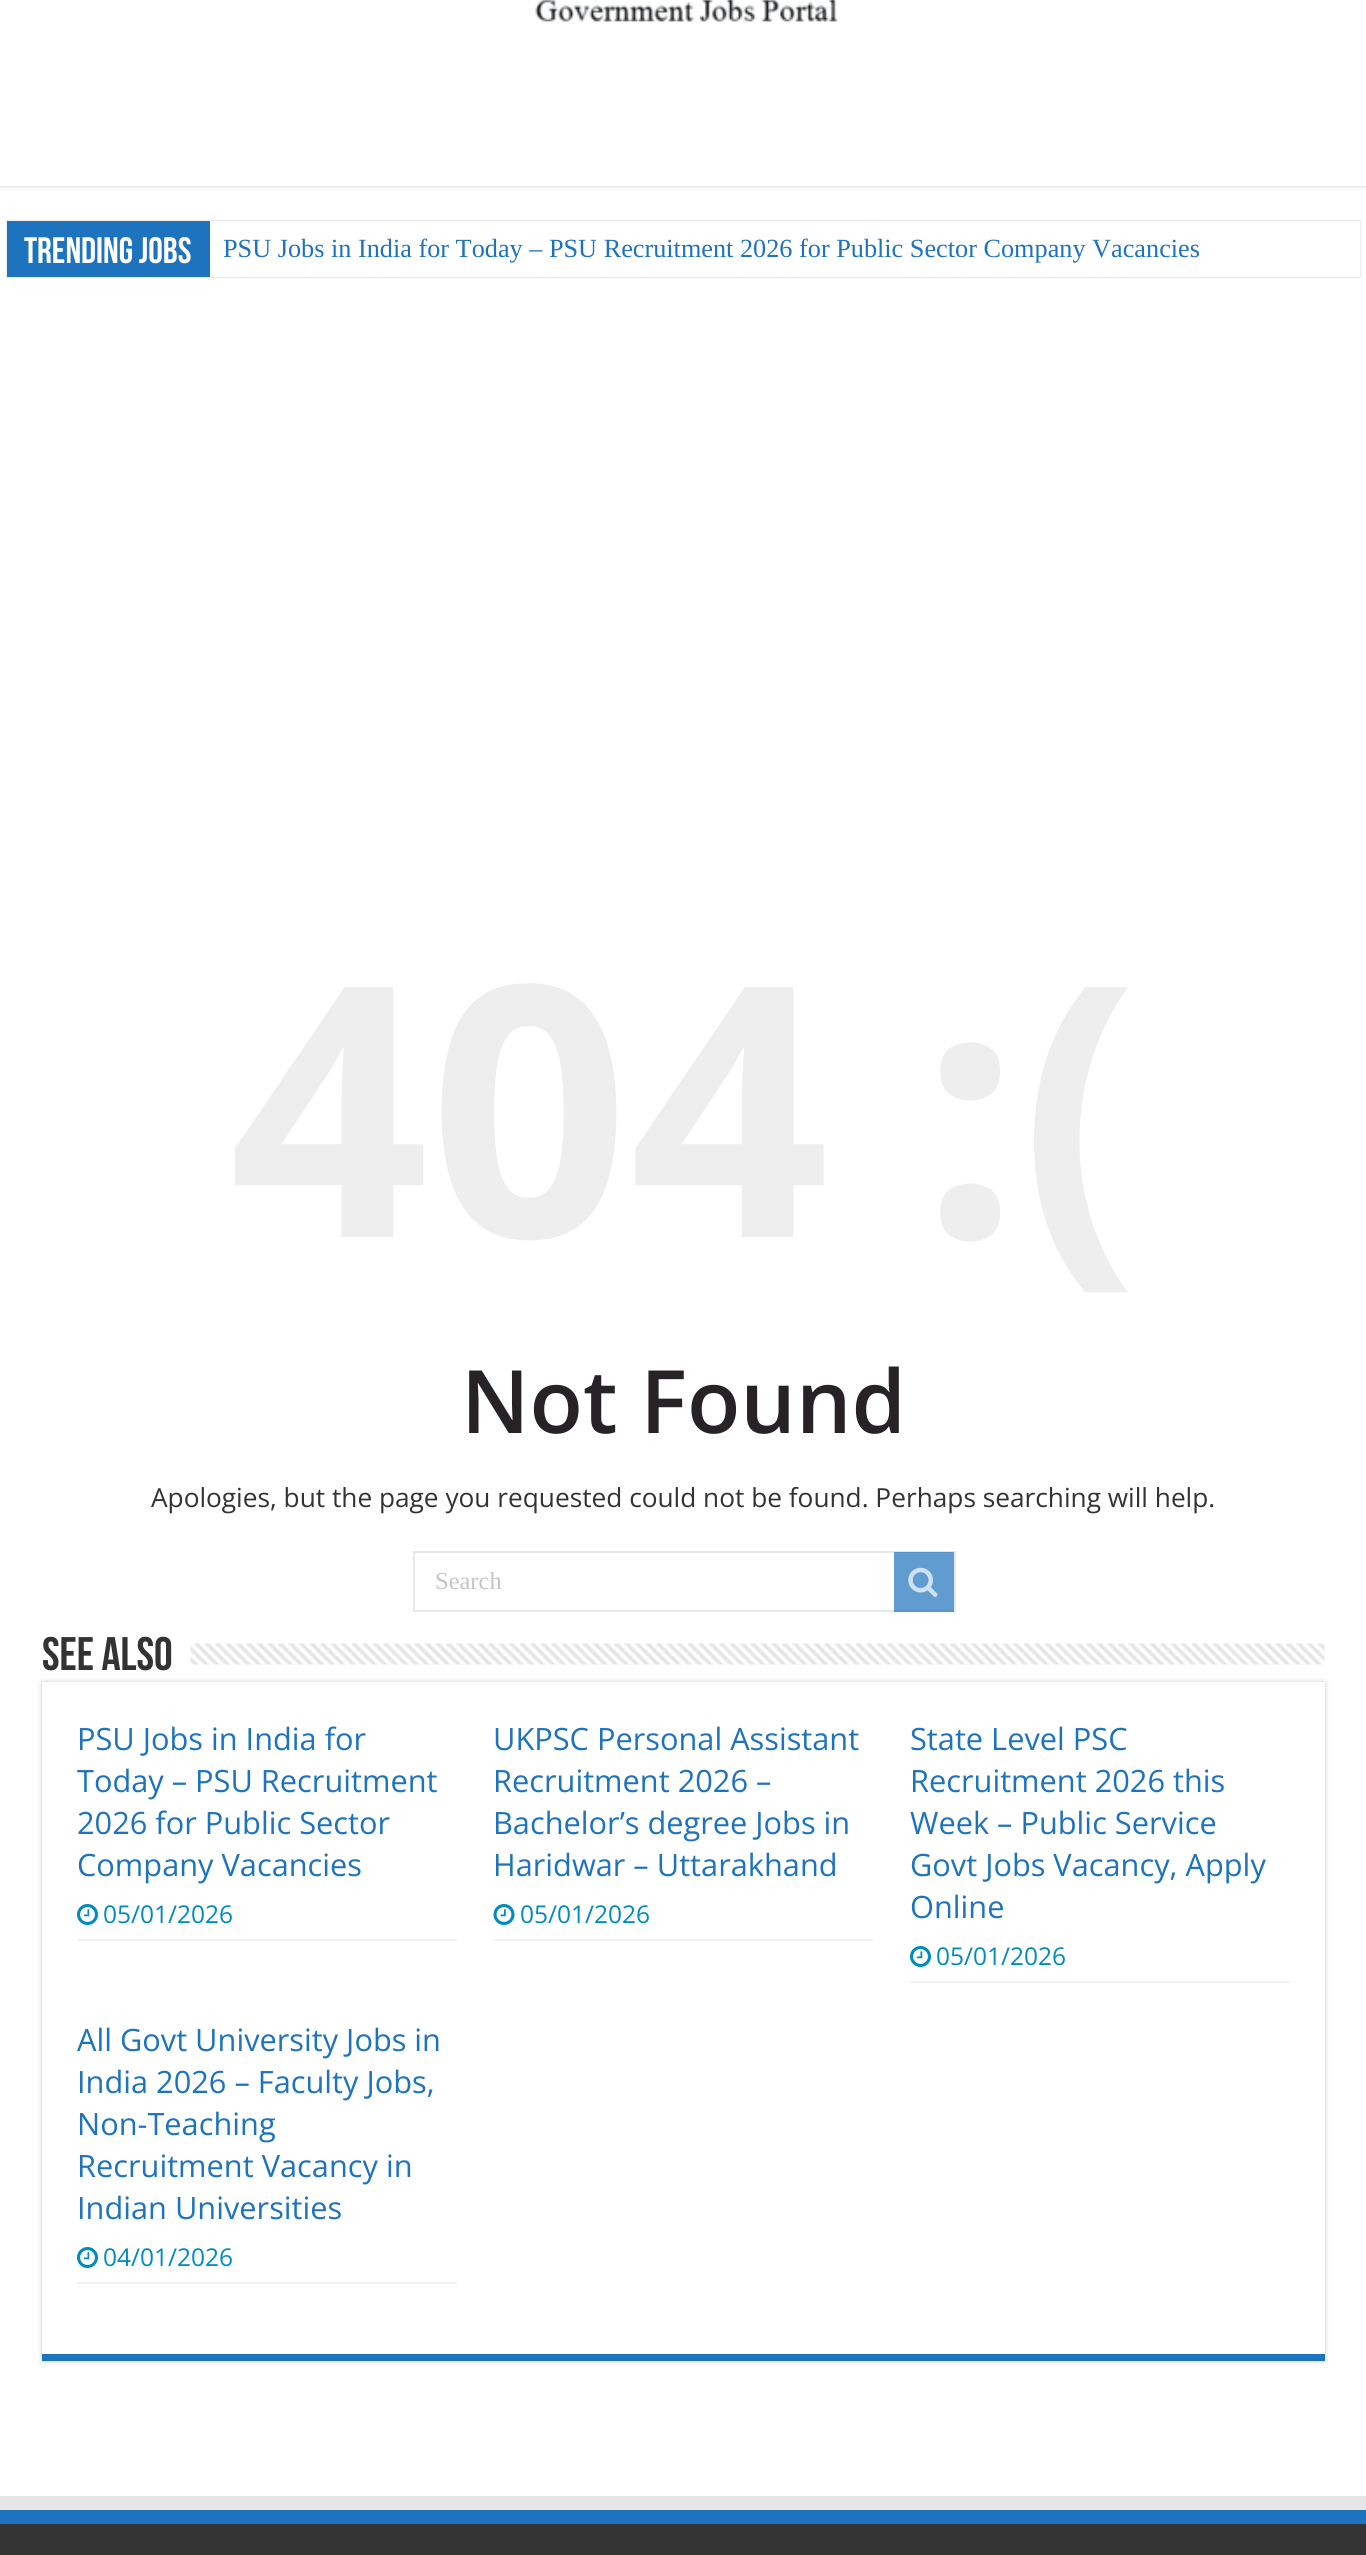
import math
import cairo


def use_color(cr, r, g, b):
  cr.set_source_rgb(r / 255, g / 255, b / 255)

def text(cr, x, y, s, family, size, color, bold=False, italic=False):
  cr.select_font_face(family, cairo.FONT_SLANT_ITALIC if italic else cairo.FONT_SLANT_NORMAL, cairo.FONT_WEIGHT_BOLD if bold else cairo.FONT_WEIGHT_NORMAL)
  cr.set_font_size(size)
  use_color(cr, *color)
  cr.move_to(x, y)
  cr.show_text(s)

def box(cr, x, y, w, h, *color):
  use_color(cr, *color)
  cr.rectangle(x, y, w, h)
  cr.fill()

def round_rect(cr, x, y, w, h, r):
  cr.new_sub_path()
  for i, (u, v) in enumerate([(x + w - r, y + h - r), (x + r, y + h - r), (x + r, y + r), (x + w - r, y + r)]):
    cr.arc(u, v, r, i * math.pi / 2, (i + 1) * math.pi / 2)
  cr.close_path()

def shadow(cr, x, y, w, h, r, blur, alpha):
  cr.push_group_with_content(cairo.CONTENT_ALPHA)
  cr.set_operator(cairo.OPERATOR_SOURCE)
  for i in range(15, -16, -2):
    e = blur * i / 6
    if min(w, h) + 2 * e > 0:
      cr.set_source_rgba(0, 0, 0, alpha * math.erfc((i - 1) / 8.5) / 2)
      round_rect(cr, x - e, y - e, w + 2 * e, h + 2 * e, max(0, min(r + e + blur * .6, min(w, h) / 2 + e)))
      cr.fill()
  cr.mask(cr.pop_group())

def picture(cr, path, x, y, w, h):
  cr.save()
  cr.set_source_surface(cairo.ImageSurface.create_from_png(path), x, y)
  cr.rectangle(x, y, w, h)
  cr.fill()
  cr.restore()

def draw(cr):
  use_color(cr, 255, 255, 255)
  cr.paint()
  use_color(cr, 202, 202, 202)
  shadow(cr, 0, -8, 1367, 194, 0, 2.5, 1)
  box(cr, 0, 0, 1366, 186, 255, 255, 255)
  picture(cr, "img_01.png", 535, 0, 304, 22)
  use_color(cr, 202, 202, 202)
  shadow(cr, 7, 221, 1353, 56, 0, 1, 1)
  box(cr, 210, 221, 1150, 56, 255, 255, 255)
  box(cr, 7, 221, 203, 56, 30, 115, 190)
  cr.rectangle(414, 1552, 541, 59)
  use_color(cr, 232, 232, 232)
  cr.stroke()
  cr.set_source_rgba(0.118, 0.451, 0.745, 0.7)
  cr.rectangle(894, 1552, 60, 60)
  cr.fill()
  picture(cr, "img_02.png", 908, 1567, 30, 30)
  picture(cr, "img_03.png", 190, 1643, 1135, 22)
  use_color(cr, 202, 202, 202)
  shadow(cr, 42, 1682, 1283, 679, 0, 2.5, 1)
  box(cr, 42, 1682, 1283, 672, 255, 255, 255)
  box(cr, 42, 2354, 1283, 7, 30, 115, 190)
  box(cr, 77, 1939, 380, 2, 242, 242, 242)
  picture(cr, "img_04.png", 77, 1904, 21, 21)
  box(cr, 494, 1939, 379, 2, 242, 242, 242)
  picture(cr, "img_05.png", 493, 1904, 22, 21)
  box(cr, 910, 1981, 380, 2, 242, 242, 242)
  picture(cr, "img_04.png", 910, 1946, 21, 21)
  box(cr, 77, 2282, 380, 2, 242, 242, 242)
  picture(cr, "img_04.png", 77, 2247, 21, 21)
  use_color(cr, 230, 230, 230)
  cr.new_path()
  cr.move_to(0, 2496)
  cr.line_to(0, 2510)
  cr.line_to(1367, 2510)
  cr.line_to(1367, 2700)
  cr.line_to(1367, 2496)
  cr.close_path()
  cr.fill()
  box(cr, 0, 2524, 1366, 31, 51, 51, 51)
  box(cr, 0, 2510, 1366, 14, 30, 115, 190)
  text(cr, 24, 263, "Trending Jobs", "Bebas Neue", 36.75, (255, 255, 255), bold=True)
  text(cr, 223, 257, "PSU Jobs in India for Today – PSU Recruitment 2026 for Public Sector Company Vacancies", "Liberation Serif", 26.25, (30, 115, 190))
  text(cr, 229, 1237, "404 :(", "Open Sans", 350, (238, 238, 238), bold=True)
  text(cr, 461, 1433, "Not Found", "Open Sans SemiBold", 87.5, (38, 34, 38))
  text(cr, 151, 1507, "Apologies, but the page you requested could not be found. Perhaps searching will help.", "Open Sans", 26.25, (51, 51, 51))
  text(cr, 435, 1589, "Search", "Liberation Serif", 24.5, (197, 197, 197))
  text(cr, 42, 1670, "See Also", "Bebas Neue", 47, (51, 51, 51), bold=True)
  text(cr, 77, 1750, "PSU Jobs in India for", "Open Sans", 30.75, (30, 115, 190))
  text(cr, 77, 1792, "Today – PSU Recruitment", "Open Sans", 30.75, (30, 115, 190))
  text(cr, 77, 1834, "2026 for Public Sector", "Open Sans", 30.75, (30, 115, 190))
  text(cr, 77, 1876, "Company Vacancies", "Open Sans", 30.75, (30, 115, 190))
  text(cr, 103, 1923, "05/01/2026", "Open Sans", 24.5, (0, 139, 189))
  text(cr, 493, 1750, "UKPSC Personal Assistant", "Open Sans", 30.75, (30, 115, 190))
  text(cr, 493, 1792, "Recruitment 2026 –", "Open Sans", 30.75, (30, 115, 190))
  text(cr, 493, 1834, "Bachelor’s degree Jobs in", "Open Sans", 30.75, (30, 115, 190))
  text(cr, 493, 1876, "Haridwar – Uttarakhand", "Open Sans", 30.75, (30, 115, 190))
  text(cr, 520, 1923, "05/01/2026", "Open Sans", 24.5, (0, 139, 189))
  text(cr, 910, 1750, "State Level PSC", "Open Sans", 30.75, (30, 115, 190))
  text(cr, 910, 1792, "Recruitment 2026 this", "Open Sans", 30.75, (30, 115, 190))
  text(cr, 910, 1834, "Week – Public Service", "Open Sans", 30.75, (30, 115, 190))
  text(cr, 910, 1876, "Govt Jobs Vacancy, Apply", "Open Sans", 30.75, (30, 115, 190))
  text(cr, 910, 1918, "Online", "Open Sans", 30.75, (30, 115, 190))
  text(cr, 936, 1965, "05/01/2026", "Open Sans", 24.5, (0, 139, 189))
  text(cr, 77, 2051, "All Govt University Jobs in", "Open Sans", 30.75, (30, 115, 190))
  text(cr, 77, 2093, "India 2026 – Faculty Jobs,", "Open Sans", 30.75, (30, 115, 190))
  text(cr, 77, 2135, "Non-Teaching", "Open Sans", 30.75, (30, 115, 190))
  text(cr, 77, 2177, "Recruitment Vacancy in", "Open Sans", 30.75, (30, 115, 190))
  text(cr, 77, 2219, "Indian Universities", "Open Sans", 30.75, (30, 115, 190))
  text(cr, 103, 2266, "04/01/2026", "Open Sans", 24.5, (0, 139, 189))


surface = cairo.ImageSurface(cairo.FORMAT_RGB24, 1366, 2555)
cr = cairo.Context(surface)
options = cairo.FontOptions()
options.set_hint_metrics(cairo.HINT_METRICS_OFF)
options.set_hint_style(cairo.HINT_STYLE_NONE)
cr.set_font_options(options)
cr.set_miter_limit(4)
draw(cr)
surface.write_to_png("out.png")
